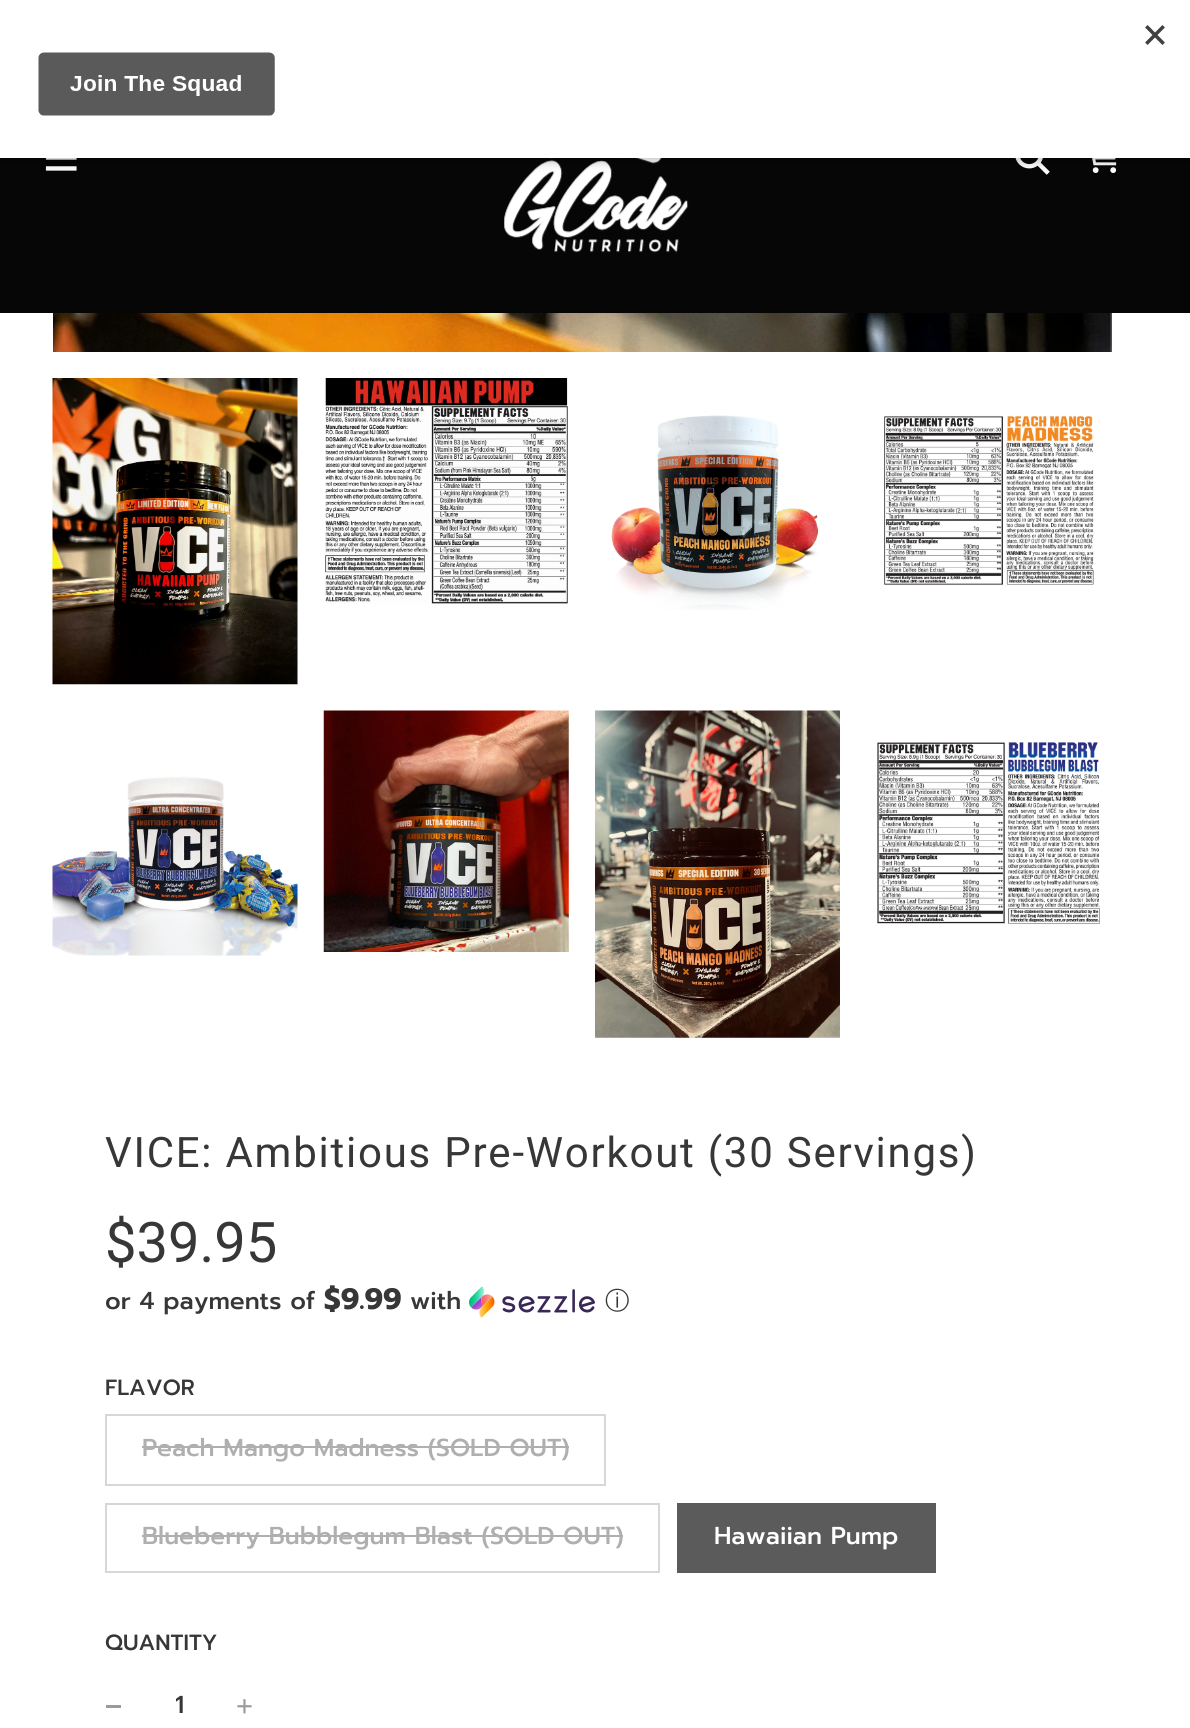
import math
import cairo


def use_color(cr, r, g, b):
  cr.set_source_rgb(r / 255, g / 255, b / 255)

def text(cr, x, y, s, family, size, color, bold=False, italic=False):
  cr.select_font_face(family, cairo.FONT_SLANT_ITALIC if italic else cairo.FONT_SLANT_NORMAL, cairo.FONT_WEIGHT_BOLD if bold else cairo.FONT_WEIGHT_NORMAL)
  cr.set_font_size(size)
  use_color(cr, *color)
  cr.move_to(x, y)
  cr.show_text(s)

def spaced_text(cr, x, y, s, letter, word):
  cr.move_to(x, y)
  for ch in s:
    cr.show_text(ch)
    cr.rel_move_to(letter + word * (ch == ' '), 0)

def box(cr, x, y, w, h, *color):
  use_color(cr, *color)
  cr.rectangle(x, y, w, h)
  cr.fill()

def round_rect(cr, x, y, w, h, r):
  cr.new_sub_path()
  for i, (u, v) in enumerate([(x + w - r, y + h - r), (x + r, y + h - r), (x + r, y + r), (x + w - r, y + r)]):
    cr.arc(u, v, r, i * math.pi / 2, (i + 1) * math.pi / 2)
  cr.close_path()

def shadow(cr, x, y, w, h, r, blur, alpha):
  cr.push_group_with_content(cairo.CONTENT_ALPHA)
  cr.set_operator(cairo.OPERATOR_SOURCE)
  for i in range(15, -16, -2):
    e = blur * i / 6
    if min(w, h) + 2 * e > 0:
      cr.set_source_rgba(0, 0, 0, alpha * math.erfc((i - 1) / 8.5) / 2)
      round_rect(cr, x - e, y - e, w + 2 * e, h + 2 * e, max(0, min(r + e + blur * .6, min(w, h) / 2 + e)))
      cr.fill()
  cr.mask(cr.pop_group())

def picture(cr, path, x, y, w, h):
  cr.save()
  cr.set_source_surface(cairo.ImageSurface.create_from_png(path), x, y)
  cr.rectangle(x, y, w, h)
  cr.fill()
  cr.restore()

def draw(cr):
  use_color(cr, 255, 255, 255)
  cr.paint()
  box(cr, 0, 158, 1190, 155, 6, 6, 6)
  picture(cr, "img_02.png", 45, 158, 32, 13)
  picture(cr, "img_03.png", 504, 158, 185, 95)
  picture(cr, "img_04.png", 1015, 158, 35, 17)
  picture(cr, "img_05.png", 1092, 158, 25, 15)
  use_color(cr, 0, 0, 0)
  shadow(cr, 0, 5, 1190, 158, 0, 5, 0.2)
  box(cr, 0, 0, 1190, 158, 255, 255, 255)
  picture(cr, "img_01.png", 38, 25, 1127, 91)
  picture(cr, "img_06.png", 53, 313, 1059, 39)
  picture(cr, "img_07.png", 52, 378, 246, 307)
  picture(cr, "img_08.png", 325, 378, 243, 226)
  picture(cr, "img_09.png", 611, 415, 208, 195)
  picture(cr, "img_10.png", 884, 415, 210, 171)
  picture(cr, "img_11.png", 52, 776, 246, 180)
  picture(cr, "img_12.png", 323, 710, 246, 242)
  picture(cr, "img_13.png", 595, 710, 245, 328)
  picture(cr, "img_14.png", 877, 742, 223, 183)
  picture(cr, "img_15.png", 469, 1286, 126, 32)
  cr.rectangle(106, 1415, 499, 70)
  use_color(cr, 215, 215, 215)
  cr.stroke()
  box(cr, 142, 1446, 427, 2, 175, 175, 175)
  cr.rectangle(106, 1504, 553, 68)
  use_color(cr, 215, 215, 215)
  cr.stroke()
  box(cr, 142, 1535, 481, 2, 175, 175, 175)
  box(cr, 677, 1503, 259, 70, 91, 91, 91)
  box(cr, 106, 1705, 15, 3, 155, 155, 155)
  picture(cr, "img_16.png", 237, 1699, 15, 15)
  cr.select_font_face("Roboto")
  cr.set_font_size(42)
  use_color(cr, 55, 55, 55)
  spaced_text(cr, 105, 1167, "VICE: Ambitious Pre-Workout (30 Servings)", 1.75, 0)
  text(cr, 105, 1262, "$39.95", "Roboto", 56, (55, 55, 55))
  text(cr, 105, 1309, "or 4 payments of", "Prompt Medium", 24.5, (55, 55, 55))
  text(cr, 324, 1309, "$9.99", "Prompt", 29.5, (55, 55, 55), bold=True)
  text(cr, 410, 1309, "with", "Prompt Medium", 24.5, (55, 55, 55))
  text(cr, 605, 1309, "ⓘ", "WenQuanYi Zen Hei Medium", 24.5, (55, 55, 55))
  text(cr, 105, 1395, "FLAVOR", "Prompt Medium", 22, (55, 55, 55))
  text(cr, 142, 1456, "Peach Mango Madness (SOLD OUT)", "Prompt Medium", 24.5, (175, 175, 175))
  text(cr, 142, 1544, "Blueberry Bubblegum Blast (SOLD OUT)", "Prompt Medium", 24.5, (175, 175, 175))
  text(cr, 714, 1544, "Hawaiian Pump", "Prompt Medium", 24.5, (255, 255, 255))
  text(cr, 105, 1650, "QUANTITY", "Prompt Medium", 22, (55, 55, 55))
  text(cr, 175, 1713, "1", "Prompt Medium", 24.5, (55, 55, 55))


surface = cairo.ImageSurface(cairo.FORMAT_RGB24, 1190, 1728)
cr = cairo.Context(surface)
options = cairo.FontOptions()
options.set_hint_metrics(cairo.HINT_METRICS_OFF)
options.set_hint_style(cairo.HINT_STYLE_NONE)
cr.set_font_options(options)
cr.set_miter_limit(4)
draw(cr)
surface.write_to_png("out.png")
